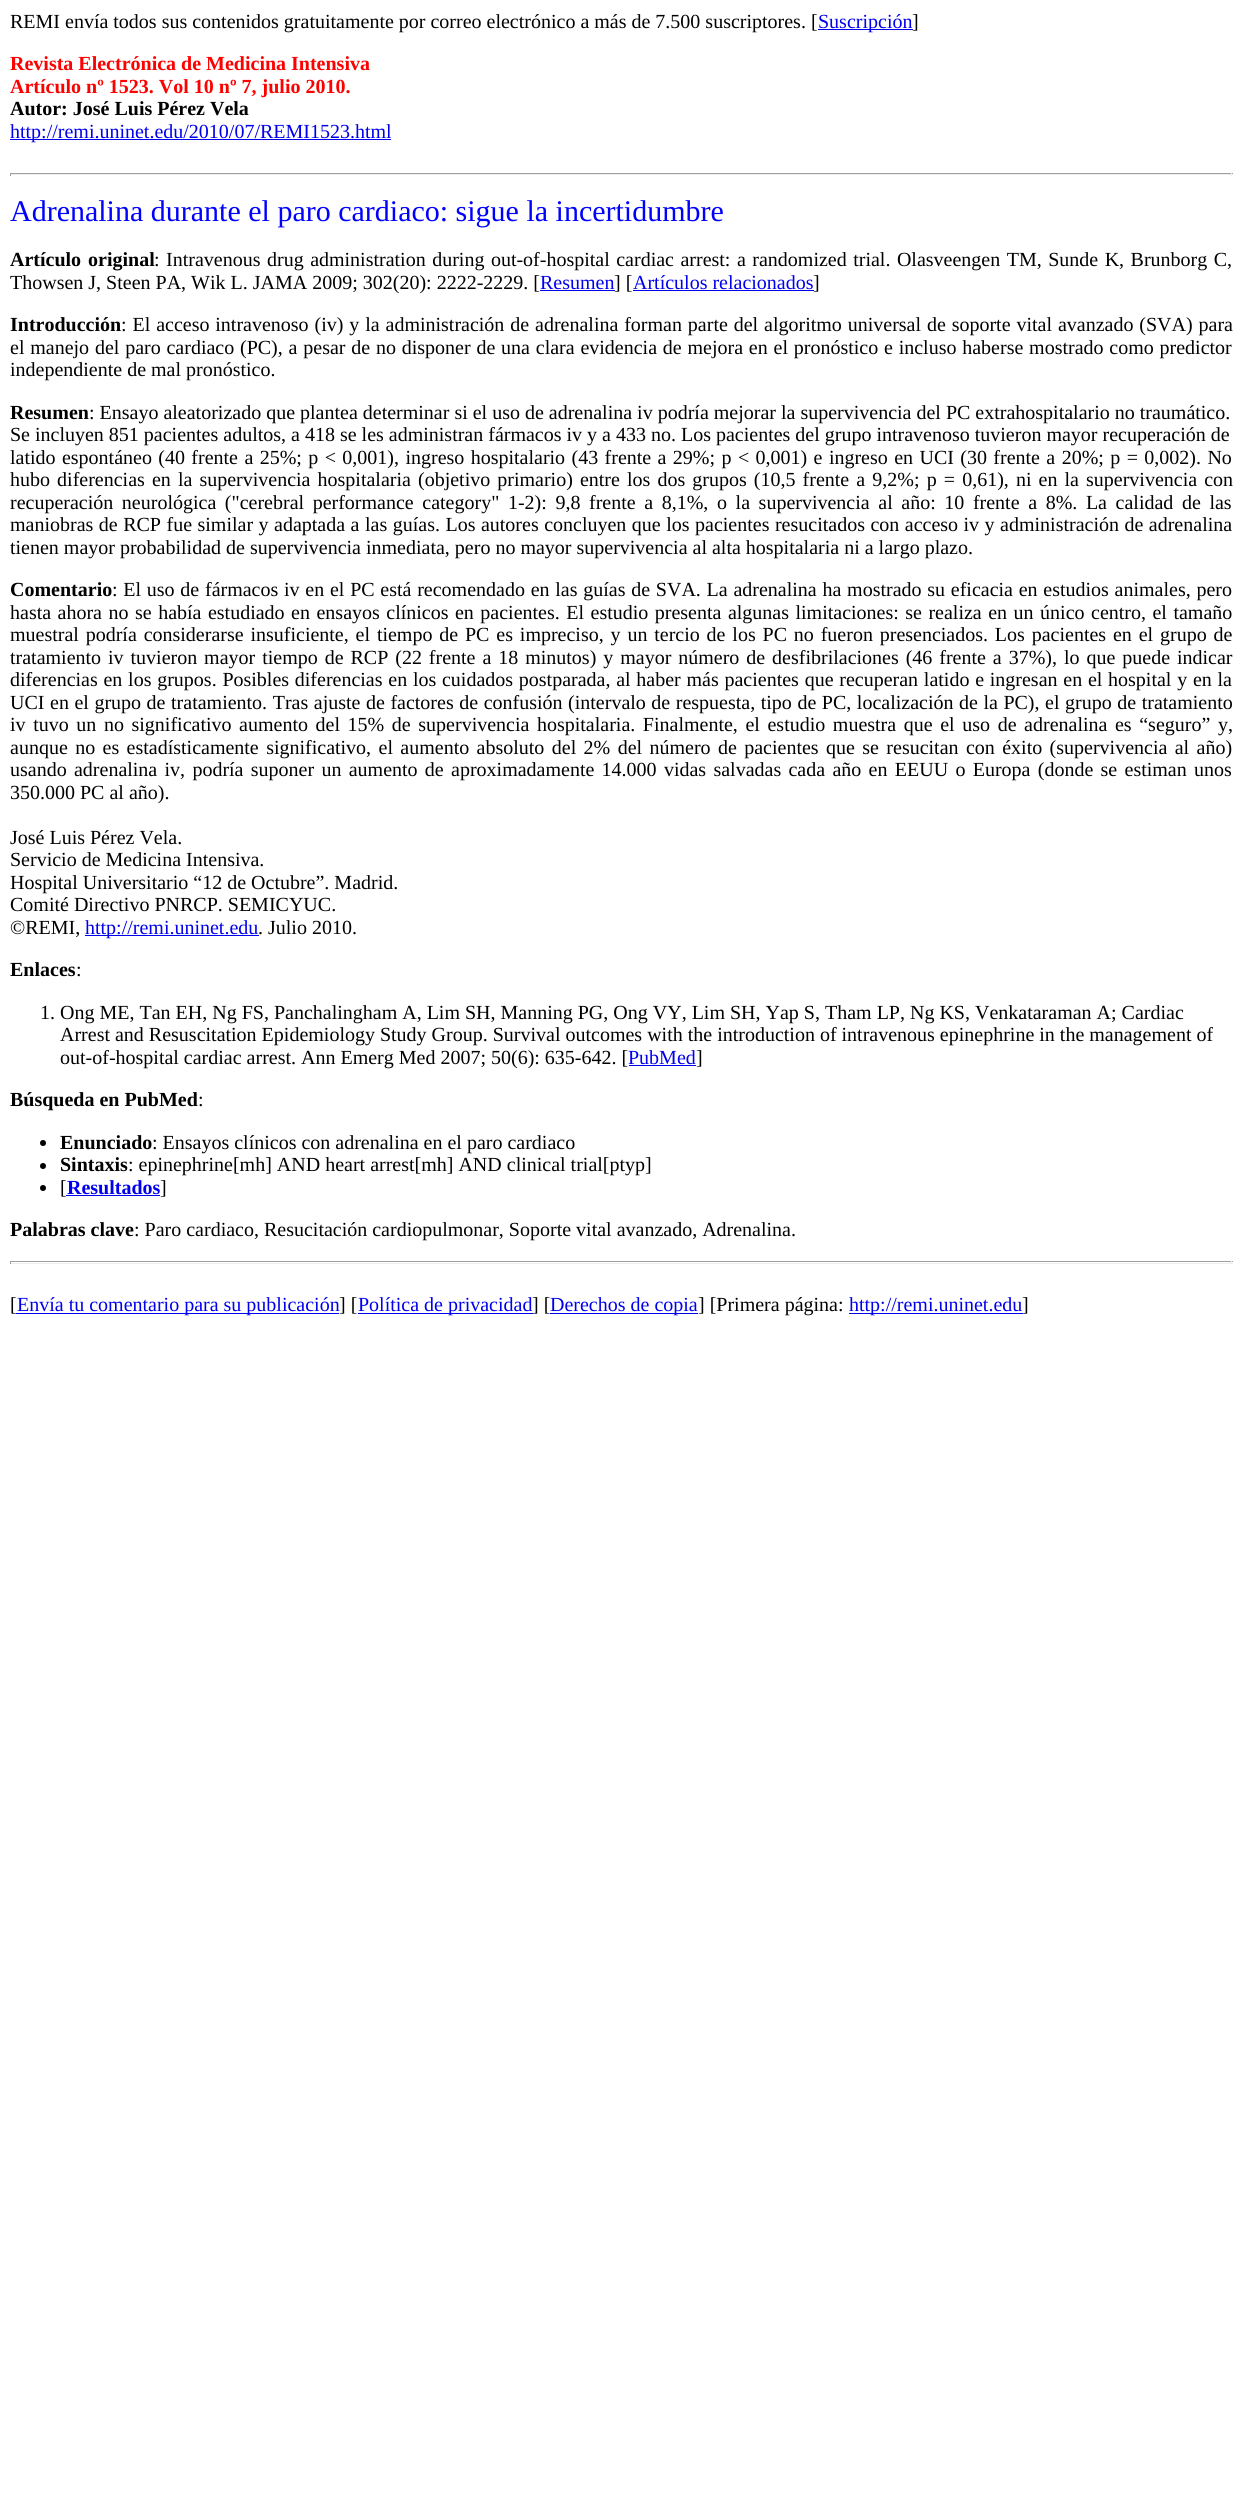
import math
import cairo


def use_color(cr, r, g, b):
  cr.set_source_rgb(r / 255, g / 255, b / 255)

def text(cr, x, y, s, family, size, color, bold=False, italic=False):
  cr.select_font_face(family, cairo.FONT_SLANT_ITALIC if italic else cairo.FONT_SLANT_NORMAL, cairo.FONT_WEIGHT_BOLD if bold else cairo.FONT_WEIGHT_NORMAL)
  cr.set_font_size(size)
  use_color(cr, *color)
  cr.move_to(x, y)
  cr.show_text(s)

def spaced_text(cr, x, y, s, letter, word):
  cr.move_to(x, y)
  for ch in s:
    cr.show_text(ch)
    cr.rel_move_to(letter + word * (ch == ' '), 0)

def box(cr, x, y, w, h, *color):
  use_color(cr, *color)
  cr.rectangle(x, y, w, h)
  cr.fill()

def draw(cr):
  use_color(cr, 255, 255, 255)
  cr.paint()
  box(cr, 818, 29, 95, 1, 0, 0, 238)
  box(cr, 10, 139, 381, 1, 0, 0, 238)
  box(cr, 10, 173, 1223, 1, 159, 159, 159)
  box(cr, 1231, 173, 1, 3, 238, 238, 238)
  box(cr, 10, 174, 1223, 1, 238, 238, 238)
  box(cr, 10, 173, 1, 3, 159, 159, 159)
  box(cr, 540, 290, 75, 1, 0, 0, 238)
  box(cr, 633, 290, 181, 1, 0, 0, 238)
  box(cr, 85, 935, 174, 1, 0, 0, 238)
  box(cr, 629, 1065, 67, 1, 0, 0, 238)
  use_color(cr, 0, 0, 0)
  cr.arc(43, 1143, 3, 0, 2 * math.pi)
  cr.fill()
  cr.arc(43, 1166, 3, 0, 2 * math.pi)
  cr.fill()
  cr.arc(43, 1188, 3, 0, 2 * math.pi)
  cr.fill()
  box(cr, 66, 1195, 94, 1, 0, 0, 238)
  box(cr, 10, 1261, 1223, 1, 159, 159, 159)
  box(cr, 1231, 1261, 1, 3, 238, 238, 238)
  box(cr, 10, 1263, 1223, 1, 238, 238, 238)
  box(cr, 10, 1261, 1, 3, 159, 159, 159)
  box(cr, 16, 1313, 323, 1, 0, 0, 238)
  box(cr, 358, 1313, 175, 1, 0, 0, 238)
  box(cr, 550, 1313, 148, 1, 0, 0, 238)
  box(cr, 849, 1313, 174, 1, 0, 0, 238)
  text(cr, 10, 28, "REMI envía todos sus contenidos gratuitamente por correo electrónico a más de 7.500 suscriptores. [", "Liberation Serif", 20, (0, 0, 0))
  text(cr, 818, 28, "Suscripción", "Liberation Serif", 20, (0, 0, 238))
  text(cr, 912, 28, "]", "Liberation Serif", 20, (0, 0, 0))
  text(cr, 10, 70, "Revista Electrónica de Medicina Intensiva", "Liberation Serif", 20, (255, 0, 0), bold=True)
  text(cr, 10, 93, "Artículo nº 1523. Vol 10 nº 7, julio 2010.", "Liberation Serif", 20, (255, 0, 0), bold=True)
  text(cr, 10, 115, "Autor: José Luis Pérez Vela", "Liberation Serif", 20, (0, 0, 0), bold=True)
  text(cr, 10, 138, "http://remi.uninet.edu/2010/07/REMI1523.html", "Liberation Serif", 20, (0, 0, 238))
  text(cr, 10, 221, "Adrenalina durante el paro cardiaco: sigue la incertidumbre", "Liberation Serif", 30, (0, 0, 255))
  cr.select_font_face("Liberation Serif", cairo.FONT_SLANT_NORMAL, cairo.FONT_WEIGHT_BOLD)
  cr.set_font_size(20)
  use_color(cr, 0, 0, 0)
  spaced_text(cr, 10, 266, "Artículo original", 0, 2)
  cr.select_font_face("Liberation Serif")
  spaced_text(cr, 154, 266, ": Intravenous drug administration during out-of-hospital cardiac arrest: a randomized trial. Olasveengen TM, Sunde K, Brunborg C,", 0, 1.5)
  text(cr, 10, 289, "Thowsen J, Steen PA, Wik L. JAMA 2009; 302(20): 2222-2229. [", "Liberation Serif", 20, (0, 0, 0))
  text(cr, 540, 289, "Resumen", "Liberation Serif", 20, (0, 0, 238))
  text(cr, 614, 289, "] [", "Liberation Serif", 20, (0, 0, 0))
  text(cr, 633, 289, "Artículos relacionados", "Liberation Serif", 20, (0, 0, 238))
  text(cr, 813, 289, "]", "Liberation Serif", 20, (0, 0, 0))
  text(cr, 10, 331, "Introducción", "Liberation Serif", 20, (0, 0, 0), bold=True)
  cr.select_font_face("Liberation Serif")
  spaced_text(cr, 121, 331, ": El acceso intravenoso (iv) y la administración de adrenalina forman parte del algoritmo universal de soporte vital avanzado (SVA) para", 0, 0.9)
  spaced_text(cr, 10, 354, "el manejo del paro cardiaco (PC), a pesar de no disponer de una clara evidencia de mejora en el pronóstico e incluso haberse mostrado como predictor", 0, 0.8)
  text(cr, 10, 376, "independiente de mal pronóstico.", "Liberation Serif", 20, (0, 0, 0))
  text(cr, 10, 419, "Resumen", "Liberation Serif", 20, (0, 0, 0), bold=True)
  text(cr, 89, 419, ": Ensayo aleatorizado que plantea determinar si el uso de adrenalina iv podría mejorar la supervivencia del PC extrahospitalario no traumático.", "Liberation Serif", 20, (0, 0, 0))
  text(cr, 10, 441, "Se incluyen 851 pacientes adultos, a 418 se les administran fármacos iv y a 433 no. Los pacientes del grupo intravenoso tuvieron mayor recuperación de", "Liberation Serif", 20, (0, 0, 0))
  spaced_text(cr, 10, 464, "latido espontáneo (40 frente a 25%; p < 0,001), ingreso hospitalario (43 frente a 29%; p < 0,001) e ingreso en UCI (30 frente a 20%; p = 0,002). No", 0, 1.4)
  spaced_text(cr, 10, 486, "hubo diferencias en la supervivencia hospitalaria (objetivo primario) entre los dos grupos (10,5 frente a 9,2%; p = 0,61), ni en la supervivencia con", 0, 2.1)
  spaced_text(cr, 10, 509, "recuperación neurológica (\"cerebral performance category\" 1-2): 9,8 frente a 8,1%, o la supervivencia al año: 10 frente a 8%. La calidad de las", 0, 3.6)
  spaced_text(cr, 10, 531, "maniobras de RCP fue similar y adaptada a las guías. Los autores concluyen que los pacientes resucitados con acceso iv y administración de adrenalina", 0, 0.5)
  text(cr, 10, 554, "tienen mayor probabilidad de supervivencia inmediata, pero no mayor supervivencia al alta hospitalaria ni a largo plazo.", "Liberation Serif", 20, (0, 0, 0))
  text(cr, 10, 596, "Comentario", "Liberation Serif", 20, (0, 0, 0), bold=True)
  cr.select_font_face("Liberation Serif")
  spaced_text(cr, 112, 596, ": El uso de fármacos iv en el PC está recomendado en las guías de SVA. La adrenalina ha mostrado su eficacia en estudios animales, pero", 0, 0.75)
  spaced_text(cr, 10, 619, "hasta ahora no se había estudiado en ensayos clínicos en pacientes. El estudio presenta algunas limitaciones: se realiza en un único centro, el tamaño", 0, 1.5)
  spaced_text(cr, 10, 641, "muestral podría considerarse insuficiente, el tiempo de PC es impreciso, y un tercio de los PC no fueron presenciados. Los pacientes en el grupo de", 0, 1.85)
  spaced_text(cr, 10, 664, "tratamiento iv tuvieron mayor tiempo de RCP (22 frente a 18 minutos) y mayor número de desfibrilaciones (46 frente a 37%), lo que puede indicar", 0, 1.95)
  spaced_text(cr, 10, 686, "diferencias en los grupos. Posibles diferencias en los cuidados postparada, al haber más pacientes que recuperan latido e ingresan en el hospital y en la", 0, 0.75)
  spaced_text(cr, 10, 709, "UCI en el grupo de tratamiento. Tras ajuste de factores de confusión (intervalo de respuesta, tipo de PC, localización de la PC), el grupo de tratamiento", 0, 0.55)
  spaced_text(cr, 10, 731, "iv tuvo un no significativo aumento del 15% de supervivencia hospitalaria. Finalmente, el estudio muestra que el uso de adrenalina es “seguro” y,", 0, 2.6)
  spaced_text(cr, 10, 754, "aunque no es estadísticamente significativo, el aumento absoluto del 2% del número de pacientes que se resucitan con éxito (supervivencia al año)", 0, 2.4)
  spaced_text(cr, 10, 776, "usando adrenalina iv, podría suponer un aumento de aproximadamente 14.000 vidas salvadas cada año en EEUU o Europa (donde se estiman unos", 0, 2.3)
  text(cr, 10, 799, "350.000 PC al año).", "Liberation Serif", 20, (0, 0, 0))
  text(cr, 10, 844, "José Luis Pérez Vela.", "Liberation Serif", 20, (0, 0, 0))
  text(cr, 10, 866, "Servicio de Medicina Intensiva.", "Liberation Serif", 20, (0, 0, 0))
  text(cr, 10, 889, "Hospital Universitario “12 de Octubre”. Madrid.", "Liberation Serif", 20, (0, 0, 0))
  text(cr, 10, 911, "Comité Directivo PNRCP. SEMICYUC.", "Liberation Serif", 20, (0, 0, 0))
  text(cr, 10, 934, "©REMI,", "Liberation Serif", 20, (0, 0, 0))
  text(cr, 85, 934, "http://remi.uninet.edu", "Liberation Serif", 20, (0, 0, 238))
  text(cr, 258, 934, ". Julio 2010.", "Liberation Serif", 20, (0, 0, 0))
  text(cr, 10, 976, "Enlaces", "Liberation Serif", 20, (0, 0, 0), bold=True)
  text(cr, 76, 976, ":", "Liberation Serif", 20, (0, 0, 0))
  text(cr, 40, 1019, "1. Ong ME, Tan EH, Ng FS, Panchalingham A, Lim SH, Manning PG, Ong VY, Lim SH, Yap S, Tham LP, Ng KS, Venkataraman A; Cardiac", "Liberation Serif", 20, (0, 0, 0))
  text(cr, 60, 1041, "Arrest and Resuscitation Epidemiology Study Group. Survival outcomes with the introduction of intravenous epinephrine in the management of", "Liberation Serif", 20, (0, 0, 0))
  text(cr, 60, 1064, "out-of-hospital cardiac arrest. Ann Emerg Med 2007; 50(6): 635-642. [", "Liberation Serif", 20, (0, 0, 0))
  text(cr, 628, 1064, "PubMed", "Liberation Serif", 20, (0, 0, 238))
  text(cr, 696, 1064, "]", "Liberation Serif", 20, (0, 0, 0))
  text(cr, 10, 1106, "Búsqueda en PubMed", "Liberation Serif", 20, (0, 0, 0), bold=True)
  text(cr, 198, 1106, ":", "Liberation Serif", 20, (0, 0, 0))
  text(cr, 60, 1149, "Enunciado", "Liberation Serif", 20, (0, 0, 0), bold=True)
  text(cr, 152, 1149, ": Ensayos clínicos con adrenalina en el paro cardiaco", "Liberation Serif", 20, (0, 0, 0))
  text(cr, 60, 1171, "Sintaxis", "Liberation Serif", 20, (0, 0, 0), bold=True)
  text(cr, 128, 1171, ": epinephrine[mh] AND heart arrest[mh] AND clinical trial[ptyp]", "Liberation Serif", 20, (0, 0, 0))
  text(cr, 60, 1194, "[", "Liberation Serif", 20, (0, 0, 0))
  text(cr, 67, 1194, "Resultados", "Liberation Serif", 20, (0, 0, 238), bold=True)
  text(cr, 160, 1194, "]", "Liberation Serif", 20, (0, 0, 0))
  text(cr, 10, 1236, "Palabras clave", "Liberation Serif", 20, (0, 0, 0), bold=True)
  text(cr, 134, 1236, ": Paro cardiaco, Resucitación cardiopulmonar, Soporte vital avanzado, Adrenalina.", "Liberation Serif", 20, (0, 0, 0))
  text(cr, 10, 1311, "[", "Liberation Serif", 20, (0, 0, 0))
  text(cr, 17, 1311, "Envía tu comentario para su publicación", "Liberation Serif", 20, (0, 0, 238))
  text(cr, 339, 1311, "] [", "Liberation Serif", 20, (0, 0, 0))
  text(cr, 358, 1311, "Política de privacidad", "Liberation Serif", 20, (0, 0, 238))
  text(cr, 532, 1311, "] [", "Liberation Serif", 20, (0, 0, 0))
  text(cr, 550, 1311, "Derechos de copia", "Liberation Serif", 20, (0, 0, 238))
  text(cr, 698, 1311, "] [Primera página:", "Liberation Serif", 20, (0, 0, 0))
  text(cr, 849, 1311, "http://remi.uninet.edu", "Liberation Serif", 20, (0, 0, 238))
  text(cr, 1022, 1311, "]", "Liberation Serif", 20, (0, 0, 0))


surface = cairo.ImageSurface(cairo.FORMAT_RGB24, 1242, 2494)
cr = cairo.Context(surface)
options = cairo.FontOptions()
options.set_hint_metrics(cairo.HINT_METRICS_OFF)
options.set_hint_style(cairo.HINT_STYLE_NONE)
cr.set_font_options(options)
cr.set_miter_limit(4)
draw(cr)
surface.write_to_png("out.png")
